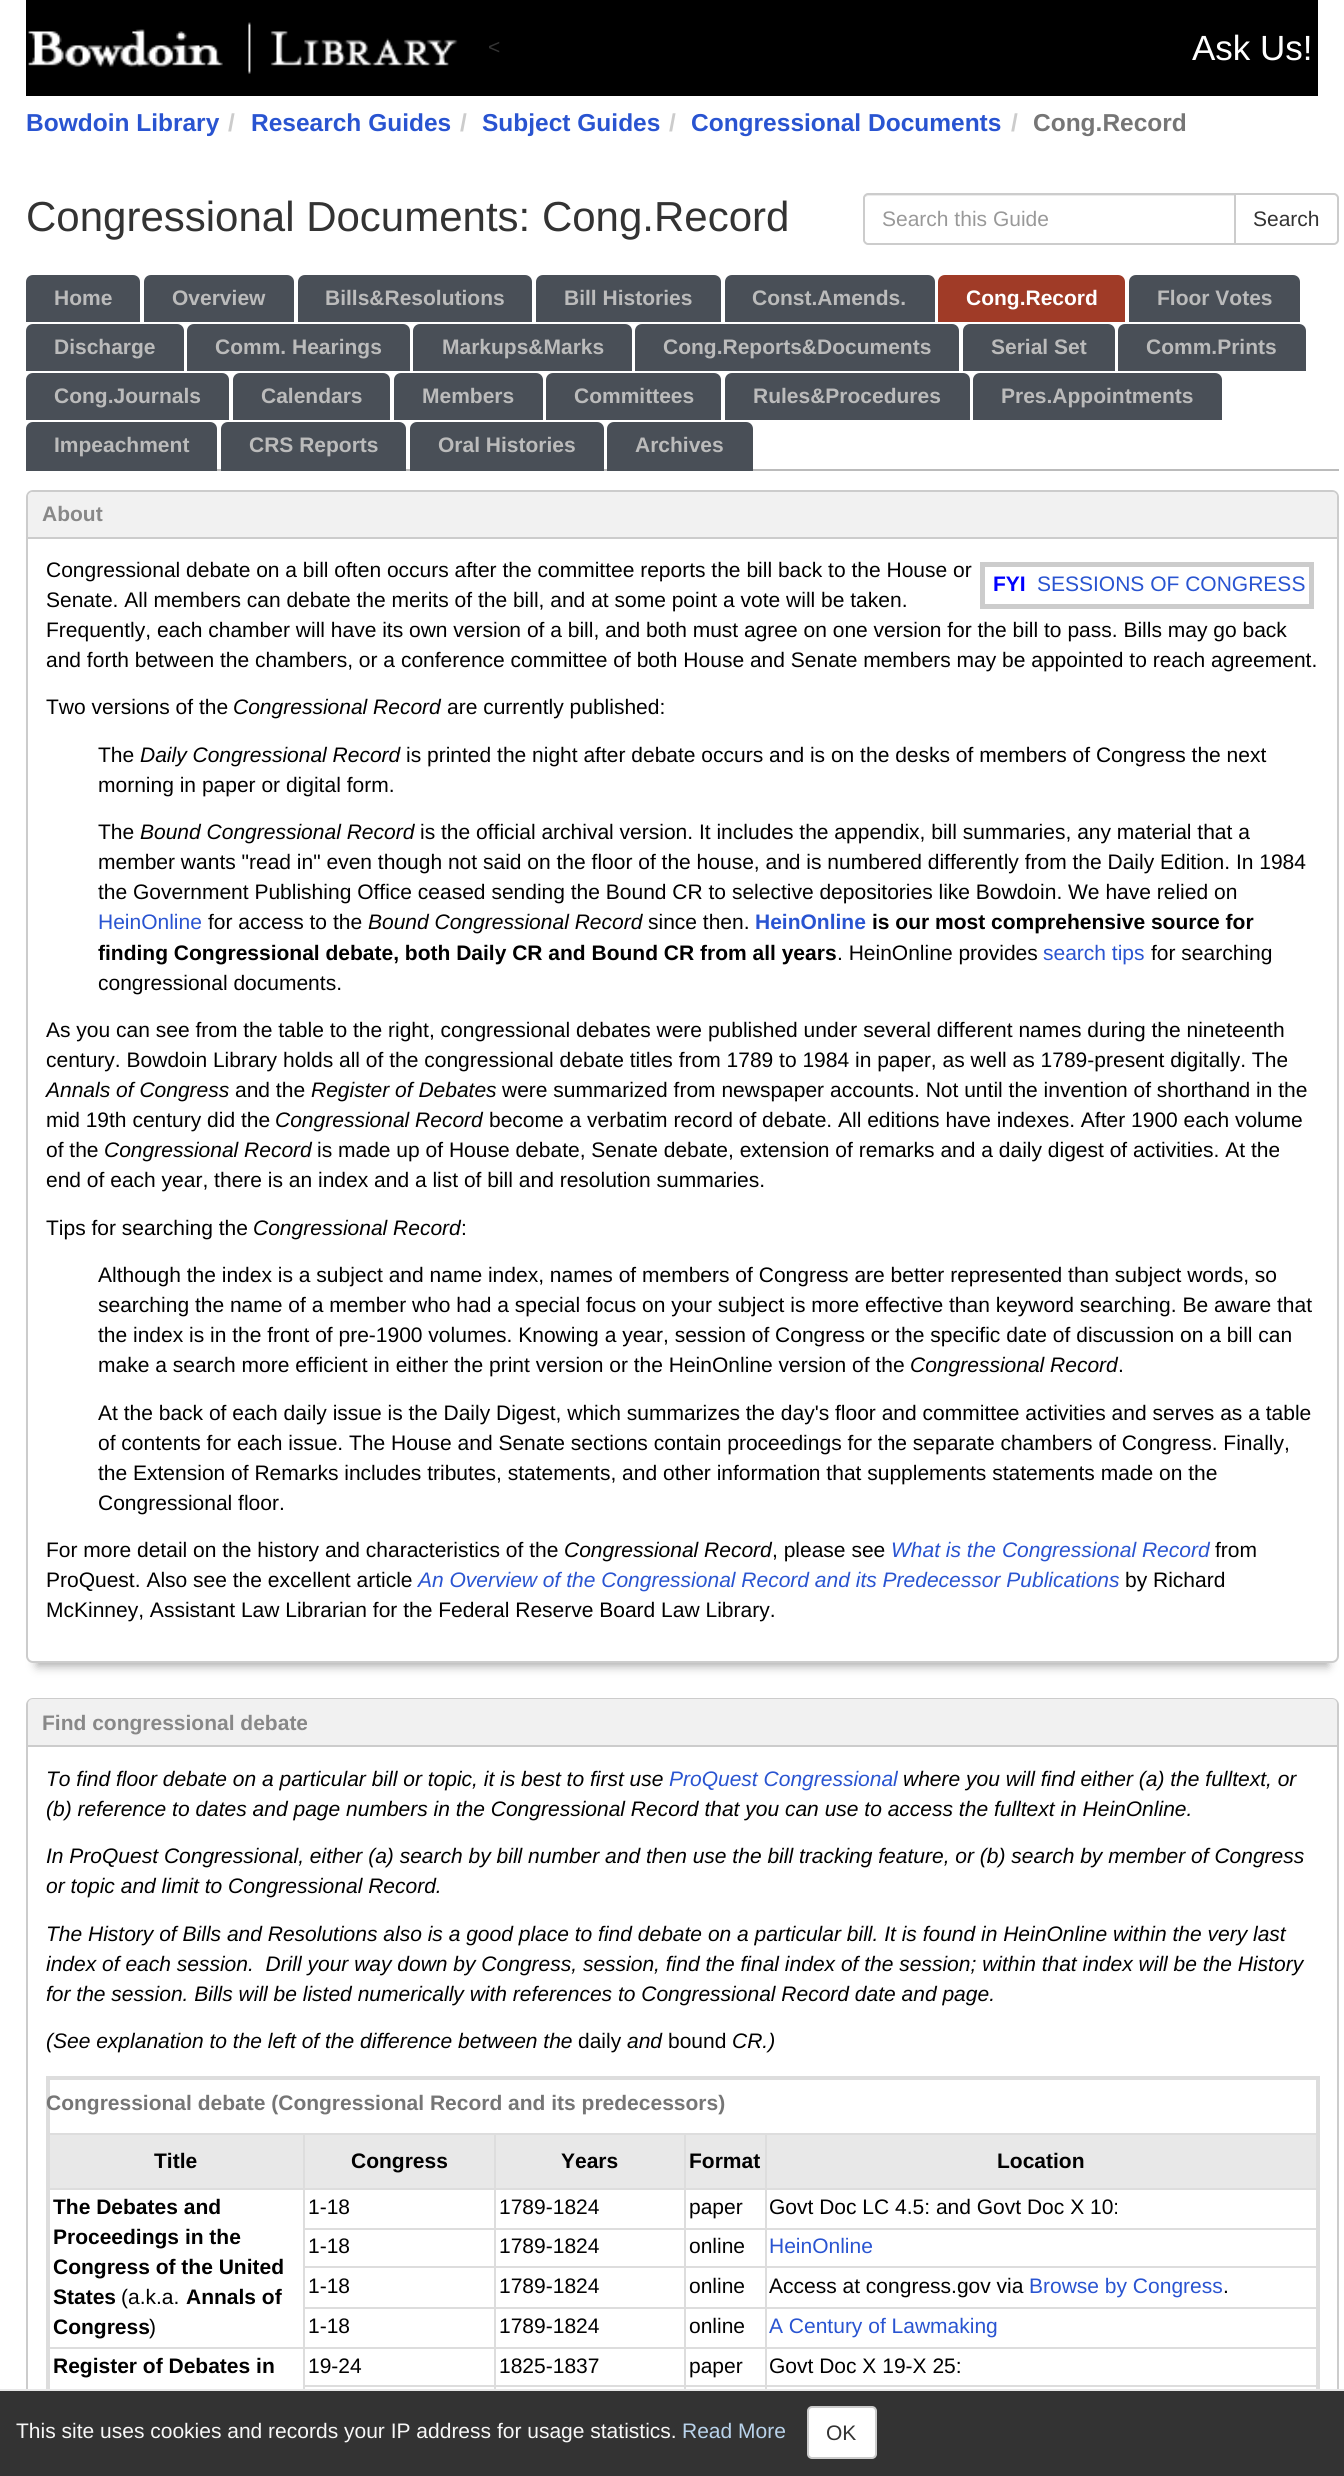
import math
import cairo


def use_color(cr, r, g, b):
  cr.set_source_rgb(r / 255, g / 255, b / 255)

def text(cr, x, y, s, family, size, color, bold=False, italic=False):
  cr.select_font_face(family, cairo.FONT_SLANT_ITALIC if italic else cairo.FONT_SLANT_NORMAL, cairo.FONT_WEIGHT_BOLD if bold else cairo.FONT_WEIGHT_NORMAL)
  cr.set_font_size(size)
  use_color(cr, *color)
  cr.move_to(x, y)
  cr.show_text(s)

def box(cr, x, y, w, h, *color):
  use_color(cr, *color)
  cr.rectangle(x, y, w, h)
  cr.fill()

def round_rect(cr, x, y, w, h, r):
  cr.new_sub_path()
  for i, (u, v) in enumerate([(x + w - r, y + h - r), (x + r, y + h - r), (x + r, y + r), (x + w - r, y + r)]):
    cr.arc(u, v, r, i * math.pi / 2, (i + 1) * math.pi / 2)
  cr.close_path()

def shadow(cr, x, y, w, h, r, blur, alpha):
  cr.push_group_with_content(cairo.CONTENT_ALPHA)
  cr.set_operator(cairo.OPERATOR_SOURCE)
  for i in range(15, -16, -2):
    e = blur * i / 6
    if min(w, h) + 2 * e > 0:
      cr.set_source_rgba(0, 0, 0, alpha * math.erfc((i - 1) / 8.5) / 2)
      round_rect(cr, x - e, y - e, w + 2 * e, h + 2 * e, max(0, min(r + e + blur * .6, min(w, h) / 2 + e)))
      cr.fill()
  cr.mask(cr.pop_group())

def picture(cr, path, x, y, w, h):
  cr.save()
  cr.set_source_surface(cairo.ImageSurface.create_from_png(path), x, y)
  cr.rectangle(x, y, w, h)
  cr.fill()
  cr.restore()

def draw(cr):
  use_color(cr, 255, 255, 255)
  cr.paint()
  box(cr, 26, 0, 1292, 96, 0, 0, 0)
  picture(cr, "img_01.png", 28, 29, 195, 38)
  picture(cr, "img_02.png", 248, 22, 210, 52)
  use_color(cr, 236, 236, 236)
  cr.new_path()
  cr.move_to(868, 196)
  cr.line_to(1234, 196)
  cr.line_to(1234, 194)
  cr.line_to(869, 194)
  cr.curve_to(867, 194, 865, 196, 865, 197)
  cr.close_path()
  cr.fill()
  cr.new_path()
  cr.move_to(868, 194)
  cr.line_to(1235, 194)
  cr.line_to(1235, 244)
  cr.line_to(868, 244)
  cr.curve_to(866, 244, 864, 242, 864, 240)
  cr.line_to(864, 198)
  cr.curve_to(864, 196, 866, 194, 868, 194)
  cr.close_path()
  use_color(cr, 204, 204, 204)
  cr.stroke()
  use_color(cr, 255, 255, 255)
  cr.new_path()
  cr.move_to(1235, 194)
  cr.line_to(1334, 194)
  cr.curve_to(1336, 194, 1338, 196, 1338, 198)
  cr.line_to(1338, 240)
  cr.curve_to(1338, 242, 1336, 244, 1334, 244)
  cr.line_to(1235, 244)
  cr.close_path()
  cr.fill_preserve()
  use_color(cr, 204, 204, 204)
  cr.stroke()
  use_color(cr, 73, 79, 87)
  cr.new_path()
  cr.move_to(33, 275)
  cr.line_to(133, 275)
  cr.curve_to(137, 275, 140, 278, 140, 282)
  cr.line_to(140, 322)
  cr.line_to(26, 322)
  cr.line_to(26, 282)
  cr.curve_to(26, 278, 29, 275, 33, 275)
  cr.close_path()
  cr.fill()
  cr.new_path()
  cr.move_to(151, 275)
  cr.line_to(287, 275)
  cr.curve_to(291, 275, 294, 278, 294, 282)
  cr.line_to(294, 322)
  cr.line_to(144, 322)
  cr.line_to(144, 282)
  cr.curve_to(144, 278, 147, 275, 151, 275)
  cr.close_path()
  cr.fill()
  cr.new_path()
  cr.move_to(305, 275)
  cr.line_to(525, 275)
  cr.curve_to(529, 275, 532, 278, 532, 282)
  cr.line_to(532, 322)
  cr.line_to(298, 322)
  cr.line_to(298, 282)
  cr.curve_to(298, 278, 301, 275, 305, 275)
  cr.close_path()
  cr.fill()
  cr.new_path()
  cr.move_to(543, 275)
  cr.line_to(714, 275)
  cr.curve_to(718, 275, 721, 278, 721, 282)
  cr.line_to(721, 322)
  cr.line_to(536, 322)
  cr.line_to(536, 282)
  cr.curve_to(536, 278, 539, 275, 543, 275)
  cr.close_path()
  cr.fill()
  cr.new_path()
  cr.move_to(732, 275)
  cr.line_to(928, 275)
  cr.curve_to(932, 275, 935, 278, 935, 282)
  cr.line_to(935, 322)
  cr.line_to(725, 322)
  cr.line_to(725, 282)
  cr.curve_to(725, 278, 728, 275, 732, 275)
  cr.close_path()
  cr.fill()
  use_color(cr, 160, 59, 39)
  cr.new_path()
  cr.move_to(945, 275)
  cr.line_to(1118, 275)
  cr.curve_to(1122, 275, 1125, 278, 1125, 282)
  cr.line_to(1125, 322)
  cr.line_to(938, 322)
  cr.line_to(938, 282)
  cr.curve_to(938, 278, 941, 275, 945, 275)
  cr.close_path()
  cr.fill()
  use_color(cr, 73, 79, 87)
  cr.new_path()
  cr.move_to(1136, 275)
  cr.line_to(1293, 275)
  cr.curve_to(1297, 275, 1300, 278, 1300, 282)
  cr.line_to(1300, 322)
  cr.line_to(1129, 322)
  cr.line_to(1129, 282)
  cr.curve_to(1129, 278, 1132, 275, 1136, 275)
  cr.close_path()
  cr.fill()
  cr.new_path()
  cr.move_to(33, 324)
  cr.line_to(177, 324)
  cr.curve_to(181, 324, 184, 327, 184, 331)
  cr.line_to(184, 371)
  cr.line_to(26, 371)
  cr.line_to(26, 331)
  cr.curve_to(26, 327, 29, 324, 33, 324)
  cr.close_path()
  cr.fill()
  cr.new_path()
  cr.move_to(194, 324)
  cr.line_to(403, 324)
  cr.curve_to(407, 324, 410, 327, 410, 331)
  cr.line_to(410, 371)
  cr.line_to(187, 371)
  cr.line_to(187, 331)
  cr.curve_to(187, 327, 190, 324, 194, 324)
  cr.close_path()
  cr.fill()
  cr.new_path()
  cr.move_to(420, 324)
  cr.line_to(625, 324)
  cr.curve_to(629, 324, 632, 327, 632, 331)
  cr.line_to(632, 371)
  cr.line_to(413, 371)
  cr.line_to(413, 331)
  cr.curve_to(413, 327, 416, 324, 420, 324)
  cr.close_path()
  cr.fill()
  cr.new_path()
  cr.move_to(642, 324)
  cr.line_to(952, 324)
  cr.curve_to(956, 324, 959, 327, 959, 331)
  cr.line_to(959, 371)
  cr.line_to(635, 371)
  cr.line_to(635, 331)
  cr.curve_to(635, 327, 638, 324, 642, 324)
  cr.close_path()
  cr.fill()
  cr.new_path()
  cr.move_to(970, 324)
  cr.line_to(1108, 324)
  cr.curve_to(1112, 324, 1115, 327, 1115, 331)
  cr.line_to(1115, 371)
  cr.line_to(963, 371)
  cr.line_to(963, 331)
  cr.curve_to(963, 327, 966, 324, 970, 324)
  cr.close_path()
  cr.fill()
  cr.new_path()
  cr.move_to(1125, 324)
  cr.line_to(1299, 324)
  cr.curve_to(1303, 324, 1306, 327, 1306, 331)
  cr.line_to(1306, 371)
  cr.line_to(1118, 371)
  cr.line_to(1118, 331)
  cr.curve_to(1118, 327, 1121, 324, 1125, 324)
  cr.close_path()
  cr.fill()
  cr.new_path()
  cr.move_to(33, 373)
  cr.line_to(222, 373)
  cr.curve_to(226, 373, 229, 376, 229, 380)
  cr.line_to(229, 420)
  cr.line_to(26, 420)
  cr.line_to(26, 380)
  cr.curve_to(26, 376, 29, 373, 33, 373)
  cr.close_path()
  cr.fill()
  cr.new_path()
  cr.move_to(240, 373)
  cr.line_to(383, 373)
  cr.curve_to(387, 373, 390, 376, 390, 380)
  cr.line_to(390, 420)
  cr.line_to(233, 420)
  cr.line_to(233, 380)
  cr.curve_to(233, 376, 236, 373, 240, 373)
  cr.close_path()
  cr.fill()
  cr.new_path()
  cr.move_to(401, 373)
  cr.line_to(536, 373)
  cr.curve_to(540, 373, 543, 376, 543, 380)
  cr.line_to(543, 420)
  cr.line_to(394, 420)
  cr.line_to(394, 380)
  cr.curve_to(394, 376, 397, 373, 401, 373)
  cr.close_path()
  cr.fill()
  cr.new_path()
  cr.move_to(553, 373)
  cr.line_to(714, 373)
  cr.curve_to(718, 373, 721, 376, 721, 380)
  cr.line_to(721, 420)
  cr.line_to(546, 420)
  cr.line_to(546, 380)
  cr.curve_to(546, 376, 549, 373, 553, 373)
  cr.close_path()
  cr.fill()
  cr.new_path()
  cr.move_to(732, 373)
  cr.line_to(963, 373)
  cr.curve_to(967, 373, 970, 376, 970, 380)
  cr.line_to(970, 420)
  cr.line_to(725, 420)
  cr.line_to(725, 380)
  cr.curve_to(725, 376, 728, 373, 732, 373)
  cr.close_path()
  cr.fill()
  cr.new_path()
  cr.move_to(980, 373)
  cr.line_to(1215, 373)
  cr.curve_to(1219, 373, 1222, 376, 1222, 380)
  cr.line_to(1222, 420)
  cr.line_to(973, 420)
  cr.line_to(973, 380)
  cr.curve_to(973, 376, 976, 373, 980, 373)
  cr.close_path()
  cr.fill()
  cr.new_path()
  cr.move_to(33, 422)
  cr.line_to(210, 422)
  cr.curve_to(214, 422, 217, 425, 217, 429)
  cr.line_to(217, 471)
  cr.line_to(26, 471)
  cr.line_to(26, 429)
  cr.curve_to(26, 425, 29, 422, 33, 422)
  cr.close_path()
  cr.fill()
  box(cr, 217, 469, 1122, 2, 187, 187, 187)
  use_color(cr, 73, 79, 87)
  cr.new_path()
  cr.move_to(228, 422)
  cr.line_to(399, 422)
  cr.curve_to(403, 422, 406, 425, 406, 429)
  cr.line_to(406, 471)
  cr.line_to(221, 471)
  cr.line_to(221, 429)
  cr.curve_to(221, 425, 224, 422, 228, 422)
  cr.close_path()
  cr.fill()
  cr.new_path()
  cr.move_to(417, 422)
  cr.line_to(597, 422)
  cr.curve_to(601, 422, 604, 425, 604, 429)
  cr.line_to(604, 471)
  cr.line_to(410, 471)
  cr.line_to(410, 429)
  cr.curve_to(410, 425, 413, 422, 417, 422)
  cr.close_path()
  cr.fill()
  cr.new_path()
  cr.move_to(614, 422)
  cr.line_to(746, 422)
  cr.curve_to(750, 422, 753, 425, 753, 429)
  cr.line_to(753, 471)
  cr.line_to(607, 471)
  cr.line_to(607, 429)
  cr.curve_to(607, 425, 610, 422, 614, 422)
  cr.close_path()
  cr.fill()
  use_color(cr, 170, 170, 170)
  shadow(cr, 37, 515, 1291, 1151, 0, 5, 1)
  use_color(cr, 255, 255, 255)
  round_rect(cr, 27, 491, 1311, 1171, 6)
  cr.fill_preserve()
  use_color(cr, 204, 204, 204)
  cr.stroke()
  use_color(cr, 241, 241, 241)
  cr.new_path()
  cr.move_to(33, 492)
  cr.line_to(1332, 492)
  cr.curve_to(1335, 492, 1337, 494, 1337, 497)
  cr.line_to(1337, 539)
  cr.line_to(28, 539)
  cr.line_to(28, 497)
  cr.curve_to(28, 494, 30, 492, 33, 492)
  cr.close_path()
  cr.fill()
  box(cr, 28, 537, 1309, 2, 204, 204, 204)
  cr.rectangle(982.5, 564.5, 329, 42)
  cr.set_line_width(5)
  cr.stroke()
  round_rect(cr, 27, 1699, 1311, 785, 6)
  cr.set_line_width(2)
  cr.stroke()
  use_color(cr, 241, 241, 241)
  cr.new_path()
  cr.move_to(33, 1699)
  cr.line_to(1332, 1699)
  cr.curve_to(1335, 1699, 1337, 1701, 1337, 1704)
  cr.line_to(1337, 1747)
  cr.line_to(28, 1747)
  cr.line_to(28, 1704)
  cr.curve_to(28, 1701, 30, 1699, 33, 1699)
  cr.close_path()
  cr.fill()
  box(cr, 28, 1745, 1309, 2, 204, 204, 204)
  box(cr, 46, 2076, 1274, 4, 221, 221, 221)
  box(cr, 765, 2133, 555, 2, 221, 221, 221)
  box(cr, 765, 2188, 555, 2, 221, 221, 221)
  box(cr, 765, 2228, 555, 2, 221, 221, 221)
  box(cr, 765, 2266, 555, 2, 221, 221, 221)
  box(cr, 765, 2307, 555, 2, 221, 221, 221)
  box(cr, 765, 2347, 555, 2, 221, 221, 221)
  box(cr, 765, 2385, 555, 2, 221, 221, 221)
  box(cr, 1316, 2076, 4, 313, 221, 221, 221)
  box(cr, 765, 2385, 2, 4, 221, 221, 221)
  box(cr, 684, 2385, 83, 2, 221, 221, 221)
  box(cr, 765, 2347, 2, 40, 221, 221, 221)
  box(cr, 684, 2347, 83, 2, 221, 221, 221)
  box(cr, 765, 2307, 2, 42, 221, 221, 221)
  box(cr, 684, 2307, 83, 2, 221, 221, 221)
  box(cr, 765, 2266, 2, 42, 221, 221, 221)
  box(cr, 684, 2266, 83, 2, 221, 221, 221)
  box(cr, 765, 2228, 2, 40, 221, 221, 221)
  box(cr, 684, 2228, 83, 2, 221, 221, 221)
  box(cr, 765, 2188, 2, 42, 221, 221, 221)
  box(cr, 684, 2188, 83, 2, 221, 221, 221)
  box(cr, 765, 2133, 2, 56, 221, 221, 221)
  box(cr, 684, 2133, 83, 2, 221, 221, 221)
  box(cr, 684, 2385, 2, 4, 221, 221, 221)
  box(cr, 494, 2385, 192, 2, 221, 221, 221)
  box(cr, 684, 2347, 2, 40, 221, 221, 221)
  box(cr, 494, 2347, 192, 2, 221, 221, 221)
  box(cr, 684, 2307, 2, 42, 221, 221, 221)
  box(cr, 494, 2307, 192, 2, 221, 221, 221)
  box(cr, 684, 2266, 2, 42, 221, 221, 221)
  box(cr, 494, 2266, 192, 2, 221, 221, 221)
  box(cr, 684, 2228, 2, 40, 221, 221, 221)
  box(cr, 494, 2228, 192, 2, 221, 221, 221)
  box(cr, 684, 2188, 2, 42, 221, 221, 221)
  box(cr, 494, 2188, 192, 2, 221, 221, 221)
  box(cr, 684, 2133, 2, 56, 221, 221, 221)
  box(cr, 494, 2133, 192, 2, 221, 221, 221)
  box(cr, 494, 2385, 2, 4, 221, 221, 221)
  box(cr, 303, 2385, 192, 2, 221, 221, 221)
  box(cr, 494, 2347, 2, 40, 221, 221, 221)
  box(cr, 303, 2347, 192, 2, 221, 221, 221)
  box(cr, 494, 2307, 2, 42, 221, 221, 221)
  box(cr, 303, 2307, 192, 2, 221, 221, 221)
  box(cr, 494, 2266, 2, 42, 221, 221, 221)
  box(cr, 303, 2266, 192, 2, 221, 221, 221)
  box(cr, 494, 2228, 2, 40, 221, 221, 221)
  box(cr, 303, 2228, 192, 2, 221, 221, 221)
  box(cr, 494, 2188, 2, 42, 221, 221, 221)
  box(cr, 303, 2188, 192, 2, 221, 221, 221)
  box(cr, 494, 2133, 2, 56, 221, 221, 221)
  box(cr, 303, 2133, 192, 2, 221, 221, 221)
  box(cr, 303, 2385, 2, 4, 221, 221, 221)
  box(cr, 303, 2347, 2, 40, 221, 221, 221)
  box(cr, 47, 2347, 258, 2, 221, 221, 221)
  box(cr, 303, 2307, 2, 42, 221, 221, 221)
  box(cr, 303, 2266, 2, 42, 221, 221, 221)
  box(cr, 303, 2228, 2, 40, 221, 221, 221)
  box(cr, 303, 2188, 2, 42, 221, 221, 221)
  box(cr, 47, 2188, 258, 2, 221, 221, 221)
  box(cr, 303, 2133, 2, 56, 221, 221, 221)
  box(cr, 47, 2133, 258, 2, 221, 221, 221)
  box(cr, 46, 2076, 4, 313, 221, 221, 221)
  box(cr, 50, 2135, 253, 53, 232, 232, 232)
  box(cr, 305, 2135, 189, 53, 232, 232, 232)
  box(cr, 496, 2135, 188, 53, 232, 232, 232)
  box(cr, 686, 2135, 79, 53, 232, 232, 232)
  box(cr, 767, 2135, 549, 53, 232, 232, 232)
  box(cr, 0, 2391, 1344, 85, 51, 51, 51)
  box(cr, 0, 2389, 1344, 2, 231, 231, 231)
  use_color(cr, 255, 255, 255)
  round_rect(cr, 808, 2407, 68, 51, 4)
  cr.fill_preserve()
  use_color(cr, 204, 204, 204)
  cr.stroke()
  text(cr, 488, 54, "<", "Liberation Sans", 21, (51, 51, 51))
  text(cr, 1192, 60, "Ask Us!", "Liberation Sans", 35, (255, 255, 255))
  text(cr, 26, 131, "Bowdoin Library", "Liberation Sans", 24.5, (41, 84, 209), bold=True)
  text(cr, 228, 131, "/", "Liberation Sans", 24.5, (204, 204, 204), bold=True)
  text(cr, 251, 131, "Research Guides", "Liberation Sans", 24.5, (41, 84, 209), bold=True)
  text(cr, 460, 131, "/", "Liberation Sans", 24.5, (204, 204, 204), bold=True)
  text(cr, 482, 131, "Subject Guides", "Liberation Sans", 24.5, (41, 84, 209), bold=True)
  text(cr, 669, 131, "/", "Liberation Sans", 24.5, (204, 204, 204), bold=True)
  text(cr, 691, 131, "Congressional Documents", "Liberation Sans", 24.5, (41, 84, 209), bold=True)
  text(cr, 1011, 131, "/", "Liberation Sans", 24.5, (204, 204, 204), bold=True)
  text(cr, 1033, 131, "Cong.Record", "Liberation Sans", 24.5, (118, 118, 118), bold=True)
  text(cr, 26, 231, "Congressional Documents: Cong.Record", "Liberation Sans", 42, (51, 51, 51))
  text(cr, 882, 226, "Search this Guide", "Liberation Sans", 21, (153, 153, 153))
  text(cr, 1253, 226, "Search", "Liberation Sans", 21, (51, 51, 51))
  text(cr, 54, 305, "Home", "Liberation Sans", 21, (187, 187, 187), bold=True)
  text(cr, 172, 305, "Overview", "Liberation Sans", 21, (187, 187, 187), bold=True)
  text(cr, 325, 305, "Bills&Resolutions", "Liberation Sans", 21, (187, 187, 187), bold=True)
  text(cr, 564, 305, "Bill Histories", "Liberation Sans", 21, (187, 187, 187), bold=True)
  text(cr, 752, 305, "Const.Amends.", "Liberation Sans", 21, (187, 187, 187), bold=True)
  text(cr, 966, 305, "Cong.Record", "Liberation Sans", 21, (255, 255, 255), bold=True)
  text(cr, 1157, 305, "Floor Votes", "Liberation Sans", 21, (187, 187, 187), bold=True)
  text(cr, 54, 354, "Discharge", "Liberation Sans", 21, (187, 187, 187), bold=True)
  text(cr, 215, 354, "Comm. Hearings", "Liberation Sans", 21, (187, 187, 187), bold=True)
  text(cr, 442, 354, "Markups&Marks", "Liberation Sans", 21, (187, 187, 187), bold=True)
  text(cr, 663, 354, "Cong.Reports&Documents", "Liberation Sans", 21, (187, 187, 187), bold=True)
  text(cr, 991, 354, "Serial Set", "Liberation Sans", 21, (187, 187, 187), bold=True)
  text(cr, 1146, 354, "Comm.Prints", "Liberation Sans", 21, (187, 187, 187), bold=True)
  text(cr, 54, 403, "Cong.Journals", "Liberation Sans", 21, (187, 187, 187), bold=True)
  text(cr, 261, 403, "Calendars", "Liberation Sans", 21, (187, 187, 187), bold=True)
  text(cr, 422, 403, "Members", "Liberation Sans", 21, (187, 187, 187), bold=True)
  text(cr, 574, 403, "Committees", "Liberation Sans", 21, (187, 187, 187), bold=True)
  text(cr, 753, 403, "Rules&Procedures", "Liberation Sans", 21, (187, 187, 187), bold=True)
  text(cr, 1001, 403, "Pres.Appointments", "Liberation Sans", 21, (187, 187, 187), bold=True)
  text(cr, 54, 452, "Impeachment", "Liberation Sans", 21, (187, 187, 187), bold=True)
  text(cr, 249, 452, "CRS Reports", "Liberation Sans", 21, (187, 187, 187), bold=True)
  text(cr, 438, 452, "Oral Histories", "Liberation Sans", 21, (187, 187, 187), bold=True)
  text(cr, 635, 452, "Archives", "Liberation Sans", 21, (187, 187, 187), bold=True)
  text(cr, 42, 521, "About", "Liberation Sans", 21, (136, 136, 136), bold=True)
  text(cr, 46, 577, "Congressional debate on a bill often occurs after the committee reports the bill back to the House or", "Liberation Sans", 21, (0, 0, 0))
  text(cr, 46, 607, "Senate. All members can debate the merits of the bill, and at some point a vote will be taken.", "Liberation Sans", 21, (0, 0, 0))
  text(cr, 46, 637, "Frequently, each chamber will have its own version of a bill, and both must agree on one version for the bill to pass. Bills may go back", "Liberation Sans", 21, (0, 0, 0))
  text(cr, 46, 667, "and forth between the chambers, or a conference committee of both House and Senate members may be appointed to reach agreement.", "Liberation Sans", 21, (0, 0, 0))
  text(cr, 993, 591, "FYI", "Liberation Sans", 21, (0, 0, 255), bold=True)
  text(cr, 1037, 591, "SESSIONS OF CONGRESS", "Liberation Sans", 21, (41, 84, 209))
  text(cr, 46, 714, "Two versions of the", "Liberation Sans", 21, (0, 0, 0))
  text(cr, 233, 714, "Congressional Record", "Liberation Sans", 21, (0, 0, 0), italic=True)
  text(cr, 447, 714, "are currently published:", "Liberation Sans", 21, (0, 0, 0))
  text(cr, 98, 762, "The", "Liberation Sans", 21, (0, 0, 0))
  text(cr, 140, 762, "Daily Congressional Record", "Liberation Sans", 21, (0, 0, 0), italic=True)
  text(cr, 406, 762, "is printed the night after debate occurs and is on the desks of members of Congress the next", "Liberation Sans", 21, (0, 0, 0))
  text(cr, 98, 792, "morning in paper or digital form.", "Liberation Sans", 21, (0, 0, 0))
  text(cr, 98, 839, "The", "Liberation Sans", 21, (0, 0, 0))
  text(cr, 140, 839, "Bound Congressional Record", "Liberation Sans", 21, (0, 0, 0), italic=True)
  text(cr, 420, 839, "is the official archival version. It includes the appendix, bill summaries, any material that a", "Liberation Sans", 21, (0, 0, 0))
  text(cr, 98, 869, "member wants \"read in\" even though not said on the floor of the house, and is numbered differently from the Daily Edition. In 1984", "Liberation Sans", 21, (0, 0, 0))
  text(cr, 98, 899, "the Government Publishing Office ceased sending the Bound CR to selective depositories like Bowdoin. We have relied on", "Liberation Sans", 21, (0, 0, 0))
  text(cr, 98, 929, "HeinOnline", "Liberation Sans", 21, (41, 84, 209))
  text(cr, 208, 929, "for access to the", "Liberation Sans", 21, (0, 0, 0))
  text(cr, 368, 929, "Bound Congressional Record", "Liberation Sans", 21, (0, 0, 0), italic=True)
  text(cr, 648, 929, "since then.", "Liberation Sans", 21, (0, 0, 0))
  text(cr, 755, 929, "HeinOnline", "Liberation Sans", 21, (41, 84, 209), bold=True)
  text(cr, 872, 929, "is our most comprehensive source for", "Liberation Sans", 21, (0, 0, 0), bold=True)
  text(cr, 98, 960, "finding Congressional debate, both Daily CR and Bound CR from all years", "Liberation Sans", 21, (0, 0, 0), bold=True)
  text(cr, 837, 960, ". HeinOnline provides", "Liberation Sans", 21, (0, 0, 0))
  text(cr, 1043, 960, "search tips", "Liberation Sans", 21, (41, 84, 209))
  text(cr, 1151, 960, "for searching", "Liberation Sans", 21, (0, 0, 0))
  text(cr, 98, 990, "congressional documents.", "Liberation Sans", 21, (0, 0, 0))
  text(cr, 46, 1037, "As you can see from the table to the right, congressional debates were published under several different names during the nineteenth", "Liberation Sans", 21, (0, 0, 0))
  text(cr, 46, 1067, "century. Bowdoin Library holds all of the congressional debate titles from 1789 to 1984 in paper, as well as 1789-present digitally. The", "Liberation Sans", 21, (0, 0, 0))
  text(cr, 46, 1097, "Annals of Congress", "Liberation Sans", 21, (0, 0, 0), italic=True)
  text(cr, 235, 1097, "and the", "Liberation Sans", 21, (0, 0, 0))
  text(cr, 311, 1097, "Register of Debates", "Liberation Sans", 21, (0, 0, 0), italic=True)
  text(cr, 502, 1097, "were summarized from newspaper accounts. Not until the invention of shorthand in the", "Liberation Sans", 21, (0, 0, 0))
  text(cr, 46, 1127, "mid 19th century did the", "Liberation Sans", 21, (0, 0, 0))
  text(cr, 275, 1127, "Congressional Record", "Liberation Sans", 21, (0, 0, 0), italic=True)
  text(cr, 489, 1127, "become a verbatim record of debate. All editions have indexes. After 1900 each volume", "Liberation Sans", 21, (0, 0, 0))
  text(cr, 46, 1157, "of the", "Liberation Sans", 21, (0, 0, 0))
  text(cr, 104, 1157, "Congressional Record", "Liberation Sans", 21, (0, 0, 0), italic=True)
  text(cr, 317, 1157, "is made up of House debate, Senate debate, extension of remarks and a daily digest of activities. At the", "Liberation Sans", 21, (0, 0, 0))
  text(cr, 46, 1187, "end of each year, there is an index and a list of bill and resolution summaries.", "Liberation Sans", 21, (0, 0, 0))
  text(cr, 46, 1235, "Tips for searching the", "Liberation Sans", 21, (0, 0, 0))
  text(cr, 253, 1235, "Congressional Record", "Liberation Sans", 21, (0, 0, 0), italic=True)
  text(cr, 461, 1235, ":", "Liberation Sans", 21, (0, 0, 0))
  text(cr, 98, 1282, "Although the index is a subject and name index, names of members of Congress are better represented than subject words, so", "Liberation Sans", 21, (0, 0, 0))
  text(cr, 98, 1312, "searching the name of a member who had a special focus on your subject is more effective than keyword searching. Be aware that", "Liberation Sans", 21, (0, 0, 0))
  text(cr, 98, 1342, "the index is in the front of pre-1900 volumes. Knowing a year, session of Congress or the specific date of discussion on a bill can", "Liberation Sans", 21, (0, 0, 0))
  text(cr, 98, 1372, "make a search more efficient in either the print version or the HeinOnline version of the", "Liberation Sans", 21, (0, 0, 0))
  text(cr, 910, 1372, "Congressional Record", "Liberation Sans", 21, (0, 0, 0), italic=True)
  text(cr, 1118, 1372, ".", "Liberation Sans", 21, (0, 0, 0))
  text(cr, 98, 1420, "At the back of each daily issue is the Daily Digest, which summarizes the day's floor and committee activities and serves as a table", "Liberation Sans", 21, (0, 0, 0))
  text(cr, 98, 1450, "of contents for each issue. The House and Senate sections contain proceedings for the separate chambers of Congress. Finally,", "Liberation Sans", 21, (0, 0, 0))
  text(cr, 98, 1480, "the Extension of Remarks includes tributes, statements, and other information that supplements statements made on the", "Liberation Sans", 21, (0, 0, 0))
  text(cr, 98, 1510, "Congressional floor.", "Liberation Sans", 21, (0, 0, 0))
  text(cr, 46, 1557, "For more detail on the history and characteristics of the", "Liberation Sans", 21, (0, 0, 0))
  text(cr, 564, 1557, "Congressional Record", "Liberation Sans", 21, (0, 0, 0), italic=True)
  text(cr, 772, 1557, ", please see", "Liberation Sans", 21, (0, 0, 0))
  text(cr, 891, 1557, "What is the Congressional Record", "Liberation Sans", 21, (41, 84, 209), italic=True)
  text(cr, 1215, 1557, "from", "Liberation Sans", 21, (0, 0, 0))
  text(cr, 46, 1587, "ProQuest. Also see the excellent article", "Liberation Sans", 21, (0, 0, 0))
  text(cr, 418, 1587, "An Overview of the Congressional Record and its Predecessor Publications", "Liberation Sans", 21, (41, 84, 209), italic=True)
  text(cr, 1125, 1587, "by Richard", "Liberation Sans", 21, (0, 0, 0))
  text(cr, 46, 1617, "McKinney, Assistant Law Librarian for the Federal Reserve Board Law Library.", "Liberation Sans", 21, (0, 0, 0))
  text(cr, 42, 1730, "Find congressional debate", "Liberation Sans", 21, (136, 136, 136), bold=True)
  text(cr, 46, 1786, "To find floor debate on a particular bill or topic, it is best to first use", "Liberation Sans", 21, (0, 0, 0), italic=True)
  text(cr, 669, 1786, "ProQuest Congressional", "Liberation Sans", 21, (41, 84, 209), italic=True)
  text(cr, 903, 1786, "where you will find either (a) the fulltext, or", "Liberation Sans", 21, (0, 0, 0), italic=True)
  text(cr, 46, 1816, "(b) reference to dates and page numbers in the Congressional Record that you can use to access the fulltext in HeinOnline.", "Liberation Sans", 21, (0, 0, 0), italic=True)
  text(cr, 46, 1863, "In ProQuest Congressional, either (a) search by bill number and then use the bill tracking feature, or (b) search by member of Congress", "Liberation Sans", 21, (0, 0, 0), italic=True)
  text(cr, 46, 1893, "or topic and limit to Congressional Record.", "Liberation Sans", 21, (0, 0, 0), italic=True)
  text(cr, 46, 1941, "The History of Bills and Resolutions also is a good place to find debate on a particular bill. It is found in HeinOnline within the very last", "Liberation Sans", 21, (0, 0, 0), italic=True)
  text(cr, 46, 1971, "index of each session.  Drill your way down by Congress, session, find the final index of the session; within that index will be the History", "Liberation Sans", 21, (0, 0, 0), italic=True)
  text(cr, 46, 2001, "for the session. Bills will be listed numerically with references to Congressional Record date and page.", "Liberation Sans", 21, (0, 0, 0), italic=True)
  text(cr, 46, 2048, "(See explanation to the left of the difference between the", "Liberation Sans", 21, (0, 0, 0), italic=True)
  text(cr, 578, 2048, "daily", "Liberation Sans", 21, (0, 0, 0))
  text(cr, 627, 2048, "and", "Liberation Sans", 21, (0, 0, 0), italic=True)
  text(cr, 668, 2048, "bound", "Liberation Sans", 21, (0, 0, 0))
  text(cr, 732, 2048, "CR.)", "Liberation Sans", 21, (0, 0, 0), italic=True)
  text(cr, 46, 2110, "Congressional debate (Congressional Record and its predecessors)", "Liberation Sans", 21, (118, 118, 118), bold=True)
  text(cr, 154, 2168, "Title", "Liberation Sans", 21, (0, 0, 0), bold=True)
  text(cr, 351, 2168, "Congress", "Liberation Sans", 21, (0, 0, 0), bold=True)
  text(cr, 561, 2168, "Years", "Liberation Sans", 21, (0, 0, 0), bold=True)
  text(cr, 689, 2168, "Format", "Liberation Sans", 21, (0, 0, 0), bold=True)
  text(cr, 997, 2168, "Location", "Liberation Sans", 21, (0, 0, 0), bold=True)
  text(cr, 53, 2214, "The Debates and", "Liberation Sans", 21, (0, 0, 0), bold=True)
  text(cr, 53, 2244, "Proceedings in the", "Liberation Sans", 21, (0, 0, 0), bold=True)
  text(cr, 53, 2274, "Congress of the United", "Liberation Sans", 21, (0, 0, 0), bold=True)
  text(cr, 53, 2304, "States", "Liberation Sans", 21, (0, 0, 0), bold=True)
  text(cr, 121, 2304, "(a.k.a.", "Liberation Sans", 21, (0, 0, 0))
  text(cr, 186, 2304, "Annals of", "Liberation Sans", 21, (0, 0, 0), bold=True)
  text(cr, 53, 2334, "Congress", "Liberation Sans", 21, (0, 0, 0), bold=True)
  text(cr, 149, 2334, ")", "Liberation Sans", 21, (0, 0, 0))
  text(cr, 308, 2214, "1-18", "Liberation Sans", 21, (0, 0, 0))
  text(cr, 499, 2214, "1789-1824", "Liberation Sans", 21, (0, 0, 0))
  text(cr, 689, 2214, "paper", "Liberation Sans", 21, (0, 0, 0))
  text(cr, 769, 2214, "Govt Doc LC 4.5: and Govt Doc X 10:", "Liberation Sans", 21, (0, 0, 0))
  text(cr, 308, 2253, "1-18", "Liberation Sans", 21, (0, 0, 0))
  text(cr, 499, 2253, "1789-1824", "Liberation Sans", 21, (0, 0, 0))
  text(cr, 689, 2253, "online", "Liberation Sans", 21, (0, 0, 0))
  text(cr, 769, 2253, "HeinOnline", "Liberation Sans", 21, (41, 84, 209))
  text(cr, 308, 2293, "1-18", "Liberation Sans", 21, (0, 0, 0))
  text(cr, 499, 2293, "1789-1824", "Liberation Sans", 21, (0, 0, 0))
  text(cr, 689, 2293, "online", "Liberation Sans", 21, (0, 0, 0))
  text(cr, 769, 2293, "Access at congress.gov via", "Liberation Sans", 21, (0, 0, 0))
  text(cr, 1029, 2293, "Browse by Congress", "Liberation Sans", 21, (41, 84, 209))
  text(cr, 1223, 2293, ".", "Liberation Sans", 21, (0, 0, 0))
  text(cr, 308, 2333, "1-18", "Liberation Sans", 21, (0, 0, 0))
  text(cr, 499, 2333, "1789-1824", "Liberation Sans", 21, (0, 0, 0))
  text(cr, 689, 2333, "online", "Liberation Sans", 21, (0, 0, 0))
  text(cr, 769, 2333, "A Century of Lawmaking", "Liberation Sans", 21, (41, 84, 209))
  text(cr, 53, 2373, "Register of Debates in", "Liberation Sans", 21, (0, 0, 0), bold=True)
  text(cr, 308, 2373, "19-24", "Liberation Sans", 21, (0, 0, 0))
  text(cr, 499, 2373, "1825-1837", "Liberation Sans", 21, (0, 0, 0))
  text(cr, 689, 2373, "paper", "Liberation Sans", 21, (0, 0, 0))
  text(cr, 769, 2373, "Govt Doc X 19-X 25:", "Liberation Sans", 21, (0, 0, 0))
  text(cr, 16, 2438, "This site uses cookies and records your IP address for usage statistics.", "Liberation Sans", 21, (248, 248, 248))
  text(cr, 682, 2438, "Read More", "Liberation Sans", 21, (185, 211, 235))
  text(cr, 826, 2440, "OK", "Liberation Sans", 21, (51, 51, 51))


surface = cairo.ImageSurface(cairo.FORMAT_RGB24, 1344, 2476)
cr = cairo.Context(surface)
options = cairo.FontOptions()
options.set_hint_metrics(cairo.HINT_METRICS_OFF)
options.set_hint_style(cairo.HINT_STYLE_NONE)
cr.set_font_options(options)
cr.set_miter_limit(4)
draw(cr)
surface.write_to_png("out.png")
